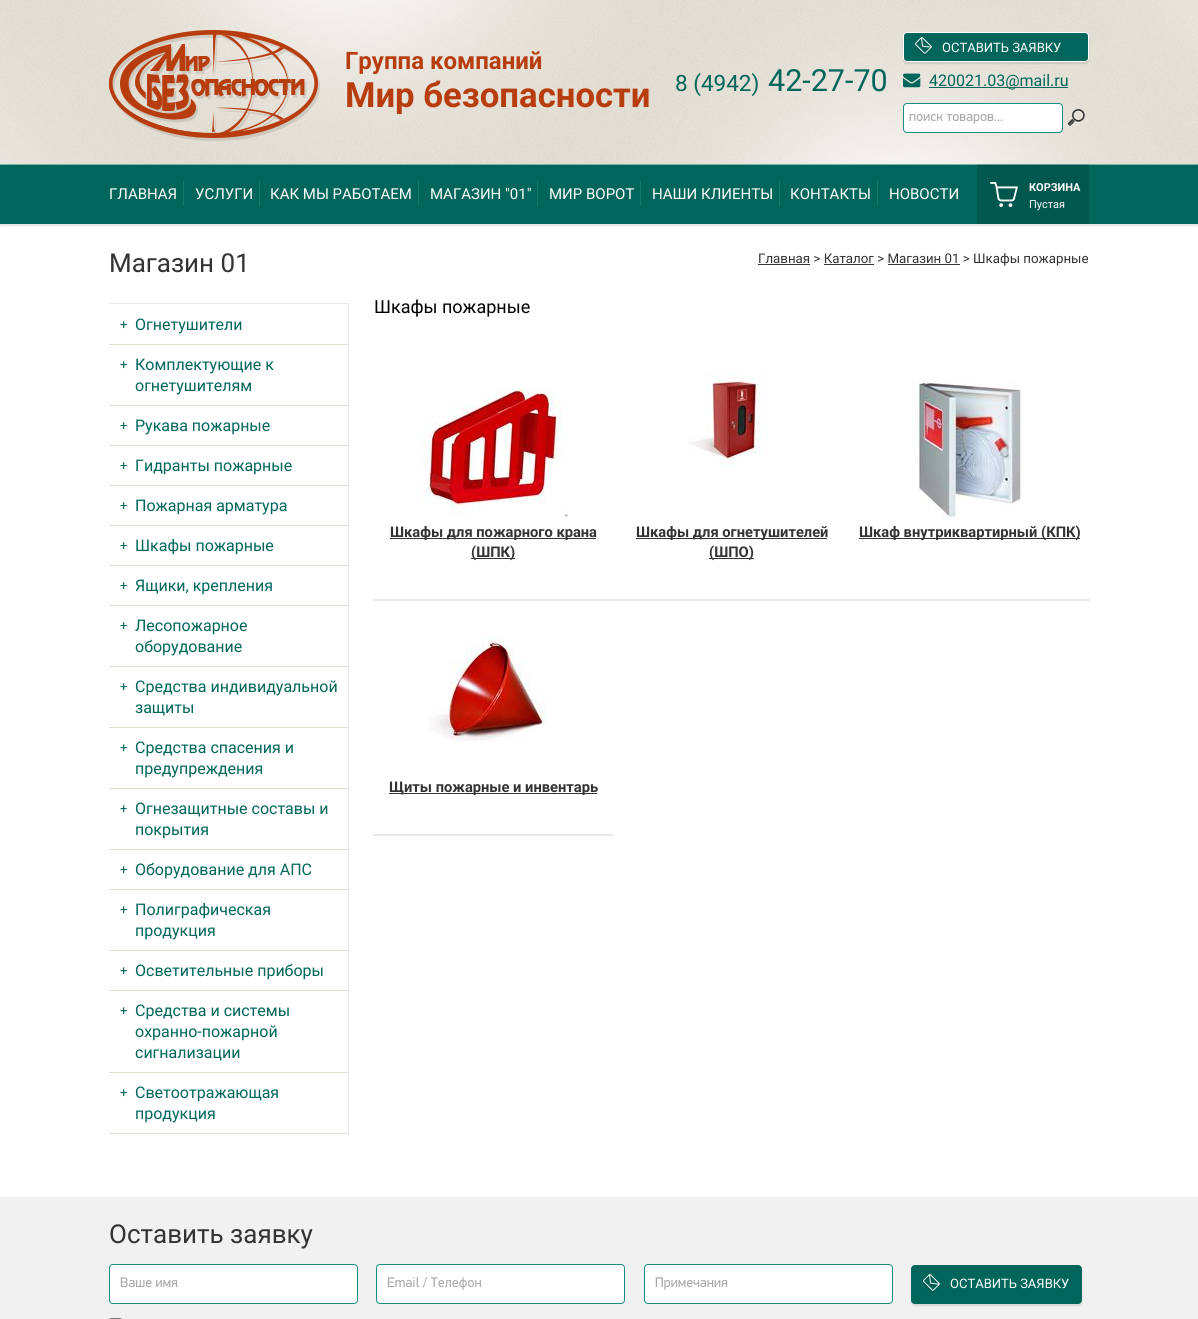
import math
import cairo


def use_color(cr, r, g, b):
  cr.set_source_rgb(r / 255, g / 255, b / 255)

def text(cr, x, y, s, family, size, color, bold=False, italic=False):
  cr.select_font_face(family, cairo.FONT_SLANT_ITALIC if italic else cairo.FONT_SLANT_NORMAL, cairo.FONT_WEIGHT_BOLD if bold else cairo.FONT_WEIGHT_NORMAL)
  cr.set_font_size(size)
  use_color(cr, *color)
  cr.move_to(x, y)
  cr.show_text(s)

def box(cr, x, y, w, h, *color):
  use_color(cr, *color)
  cr.rectangle(x, y, w, h)
  cr.fill()

def round_rect(cr, x, y, w, h, r):
  cr.new_sub_path()
  for i, (u, v) in enumerate([(x + w - r, y + h - r), (x + r, y + h - r), (x + r, y + r), (x + w - r, y + r)]):
    cr.arc(u, v, r, i * math.pi / 2, (i + 1) * math.pi / 2)
  cr.close_path()

def shadow(cr, x, y, w, h, r, blur, alpha):
  cr.push_group_with_content(cairo.CONTENT_ALPHA)
  cr.set_operator(cairo.OPERATOR_SOURCE)
  for i in range(15, -16, -2):
    e = blur * i / 6
    if min(w, h) + 2 * e > 0:
      cr.set_source_rgba(0, 0, 0, alpha * math.erfc((i - 1) / 8.5) / 2)
      round_rect(cr, x - e, y - e, w + 2 * e, h + 2 * e, max(0, min(r + e + blur * .6, min(w, h) / 2 + e)))
      cr.fill()
  cr.mask(cr.pop_group())

def picture(cr, path, x, y, w, h):
  cr.save()
  cr.set_source_surface(cairo.ImageSurface.create_from_png(path), x, y)
  cr.rectangle(x, y, w, h)
  cr.fill()
  cr.restore()

def draw(cr):
  use_color(cr, 255, 255, 255)
  cr.paint()
  picture(cr, "img_01.png", 0, 0, 1198, 164)
  picture(cr, "img_02.png", 109, 30, 211, 111)
  use_color(cr, 0, 0, 0)
  shadow(cr, 903, 34, 186, 30, 4, 0.5, 0.1)
  use_color(cr, 0, 102, 91)
  round_rect(cr, 903.5, 32.5, 185, 29, 3.5)
  cr.fill_preserve()
  use_color(cr, 255, 255, 255)
  cr.set_line_width(1)
  cr.stroke()
  picture(cr, "img_03.png", 915, 37, 17, 19)
  picture(cr, "img_04.png", 903, 73, 18, 15)
  box(cr, 929, 87, 139, 1, 0, 102, 91)
  use_color(cr, 255, 255, 255)
  round_rect(cr, 903.5, 103.5, 159, 29, 3.5)
  cr.fill_preserve()
  use_color(cr, 24, 140, 127)
  cr.stroke()
  picture(cr, "img_05.png", 909, 114, 94, 10)
  picture(cr, "img_06.png", 1067, 109, 18, 18)
  use_color(cr, 0, 0, 0)
  shadow(cr, 0, 166, 1198, 60, 0, 0.5, 0.1)
  box(cr, 0, 165, 1198, 59, 0, 102, 91)
  box(cr, 977, 165, 112, 59, 0, 87, 77)
  box(cr, 0, 164, 1198, 1, 128, 179, 173)
  box(cr, 977, 164, 112, 1, 109, 152, 147)
  box(cr, 183, 181, 1, 25, 26, 117, 107)
  box(cr, 259, 181, 1, 25, 26, 117, 107)
  box(cr, 418, 181, 1, 25, 26, 117, 107)
  box(cr, 537, 181, 1, 25, 26, 117, 107)
  box(cr, 640, 181, 1, 25, 26, 117, 107)
  box(cr, 779, 181, 1, 25, 26, 117, 107)
  box(cr, 877, 181, 1, 25, 26, 117, 107)
  picture(cr, "img_07.png", 990, 182, 28, 25)
  box(cr, 109, 303, 240, 1, 233, 233, 233)
  box(cr, 348, 303, 1, 831, 233, 233, 233)
  box(cr, 109, 344, 239, 1, 228, 223, 212)
  box(cr, 109, 405, 239, 1, 228, 223, 212)
  box(cr, 109, 445, 239, 1, 228, 223, 212)
  box(cr, 109, 485, 239, 1, 228, 223, 212)
  box(cr, 109, 525, 239, 1, 228, 223, 212)
  box(cr, 109, 565, 239, 1, 228, 223, 212)
  box(cr, 109, 605, 239, 1, 228, 223, 212)
  box(cr, 109, 666, 239, 1, 228, 223, 212)
  box(cr, 109, 727, 239, 1, 228, 223, 212)
  box(cr, 109, 788, 239, 1, 228, 223, 212)
  box(cr, 109, 849, 239, 1, 228, 223, 212)
  box(cr, 109, 889, 239, 1, 228, 223, 212)
  box(cr, 109, 950, 239, 1, 228, 223, 212)
  box(cr, 109, 990, 239, 1, 228, 223, 212)
  box(cr, 109, 1072, 239, 1, 228, 223, 212)
  box(cr, 109, 1133, 239, 1, 228, 223, 212)
  box(cr, 758, 264, 52, 1, 51, 51, 51)
  box(cr, 824, 264, 50, 1, 51, 51, 51)
  box(cr, 888, 264, 72, 1, 51, 51, 51)
  picture(cr, "img_08.png", 418, 389, 150, 128)
  box(cr, 390, 538, 206, 1, 51, 51, 51)
  box(cr, 471, 558, 44, 1, 51, 51, 51)
  picture(cr, "img_09.png", 688, 374, 80, 94)
  box(cr, 636, 538, 191, 1, 51, 51, 51)
  box(cr, 709, 558, 45, 1, 51, 51, 51)
  box(cr, 373, 599, 717, 2, 233, 233, 233)
  picture(cr, "img_10.png", 911, 382, 112, 136)
  box(cr, 859, 538, 221, 1, 51, 51, 51)
  box(cr, 373, 834, 240, 2, 233, 233, 233)
  picture(cr, "img_11.png", 428, 629, 119, 112)
  box(cr, 389, 793, 208, 1, 51, 51, 51)
  box(cr, 0, 1197, 1198, 122, 241, 241, 241)
  use_color(cr, 255, 255, 255)
  round_rect(cr, 109.5, 1264.5, 248, 39, 3.5)
  cr.fill_preserve()
  use_color(cr, 24, 140, 127)
  cr.stroke()
  picture(cr, "img_12.png", 120, 1277, 58, 10)
  use_color(cr, 255, 255, 255)
  round_rect(cr, 376.5, 1264.5, 248, 39, 3.5)
  cr.fill_preserve()
  use_color(cr, 24, 140, 127)
  cr.stroke()
  picture(cr, "img_13.png", 387, 1276, 94, 14)
  use_color(cr, 255, 255, 255)
  round_rect(cr, 644.5, 1264.5, 248, 39, 3.5)
  cr.fill_preserve()
  use_color(cr, 24, 140, 127)
  cr.stroke()
  picture(cr, "img_14.png", 655, 1277, 73, 13)
  use_color(cr, 0, 0, 0)
  shadow(cr, 911, 1267, 171, 39, 4, 0.5, 0.1)
  use_color(cr, 0, 102, 91)
  round_rect(cr, 911.5, 1265.5, 170, 38, 3.5)
  cr.fill_preserve()
  cr.stroke()
  picture(cr, "img_03.png", 923, 1274, 17, 19)
  round_rect(cr, 109.5, 1318.5, 12, 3, 1.5)
  use_color(cr, 118, 118, 118)
  cr.stroke()
  text(cr, 345, 69, "Группа компаний", "Roboto", 24, (184, 61, 14), bold=True)
  text(cr, 345, 107, "Мир безопасности", "Roboto", 34.75, (184, 61, 14), bold=True)
  text(cr, 675, 91, "8 (4942)", "Roboto", 22.5, (0, 102, 91))
  text(cr, 768, 91, "42-27-70", "Roboto", 30.5, (0, 102, 91))
  text(cr, 942, 52, "ОСТАВИТЬ ЗАЯВКУ", "Roboto", 13, (255, 255, 255))
  text(cr, 929, 86, "420021.03@mail.ru", "Roboto", 16, (0, 102, 91))
  text(cr, 109, 199, "ГЛАВНАЯ", "Roboto", 15, (255, 255, 255))
  text(cr, 195, 199, "УСЛУГИ", "Roboto", 15, (255, 255, 255))
  text(cr, 270, 199, "КАК МЫ РАБОТАЕМ", "Roboto", 15, (255, 255, 255))
  text(cr, 430, 199, "МАГАЗИН \"01\"", "Roboto", 15, (255, 255, 255))
  text(cr, 549, 199, "МИР ВОРОТ", "Roboto", 15, (255, 255, 255))
  text(cr, 652, 199, "НАШИ КЛИЕНТЫ", "Roboto", 15, (255, 255, 255))
  text(cr, 790, 199, "КОНТАКТЫ", "Roboto", 15, (255, 255, 255))
  text(cr, 889, 199, "НОВОСТИ", "Roboto", 15, (255, 255, 255))
  text(cr, 1029, 191, "КОРЗИНА", "Roboto", 11, (255, 255, 255), bold=True)
  text(cr, 1029, 208, "Пустая", "Roboto", 11, (255, 255, 255))
  text(cr, 109, 272, "Магазин 01", "Roboto", 26, (51, 51, 51))
  text(cr, 120, 329, "+", "Roboto", 13, (0, 102, 91))
  text(cr, 135, 330, "Огнетушители", "Roboto", 16, (0, 102, 91))
  text(cr, 120, 369, "+", "Roboto", 13, (0, 102, 91))
  text(cr, 135, 370, "Комплектующие к", "Roboto", 16, (0, 102, 91))
  text(cr, 135, 391, "огнетушителям", "Roboto", 16, (0, 102, 91))
  text(cr, 120, 430, "+", "Roboto", 13, (0, 102, 91))
  text(cr, 135, 431, "Рукава пожарные", "Roboto", 16, (0, 102, 91))
  text(cr, 120, 470, "+", "Roboto", 13, (0, 102, 91))
  text(cr, 135, 471, "Гидранты пожарные", "Roboto", 16, (0, 102, 91))
  text(cr, 120, 510, "+", "Roboto", 13, (0, 102, 91))
  text(cr, 135, 511, "Пожарная арматура", "Roboto", 16, (0, 102, 91))
  text(cr, 120, 550, "+", "Roboto", 13, (0, 102, 91))
  text(cr, 135, 551, "Шкафы пожарные", "Roboto", 16, (0, 102, 91))
  text(cr, 120, 590, "+", "Roboto", 13, (0, 102, 91))
  text(cr, 135, 591, "Ящики, крепления", "Roboto", 16, (0, 102, 91))
  text(cr, 120, 630, "+", "Roboto", 13, (0, 102, 91))
  text(cr, 135, 631, "Лесопожарное", "Roboto", 16, (0, 102, 91))
  text(cr, 135, 652, "оборудование", "Roboto", 16, (0, 102, 91))
  text(cr, 120, 691, "+", "Roboto", 13, (0, 102, 91))
  text(cr, 135, 692, "Средства индивидуальной", "Roboto", 16, (0, 102, 91))
  text(cr, 135, 713, "защиты", "Roboto", 16, (0, 102, 91))
  text(cr, 120, 752, "+", "Roboto", 13, (0, 102, 91))
  text(cr, 135, 753, "Средства спасения и", "Roboto", 16, (0, 102, 91))
  text(cr, 135, 774, "предупреждения", "Roboto", 16, (0, 102, 91))
  text(cr, 120, 813, "+", "Roboto", 13, (0, 102, 91))
  text(cr, 135, 814, "Огнезащитные составы и", "Roboto", 16, (0, 102, 91))
  text(cr, 135, 835, "покрытия", "Roboto", 16, (0, 102, 91))
  text(cr, 120, 874, "+", "Roboto", 13, (0, 102, 91))
  text(cr, 135, 875, "Оборудование для АПС", "Roboto", 16, (0, 102, 91))
  text(cr, 120, 914, "+", "Roboto", 13, (0, 102, 91))
  text(cr, 135, 915, "Полиграфическая", "Roboto", 16, (0, 102, 91))
  text(cr, 135, 936, "продукция", "Roboto", 16, (0, 102, 91))
  text(cr, 120, 975, "+", "Roboto", 13, (0, 102, 91))
  text(cr, 135, 976, "Осветительные приборы", "Roboto", 16, (0, 102, 91))
  text(cr, 120, 1015, "+", "Roboto", 13, (0, 102, 91))
  text(cr, 135, 1016, "Средства и системы", "Roboto", 16, (0, 102, 91))
  text(cr, 135, 1037, "охранно-пожарной", "Roboto", 16, (0, 102, 91))
  text(cr, 135, 1058, "сигнализации", "Roboto", 16, (0, 102, 91))
  text(cr, 120, 1097, "+", "Roboto", 13, (0, 102, 91))
  text(cr, 135, 1098, "Светоотражающая", "Roboto", 16, (0, 102, 91))
  text(cr, 135, 1119, "продукция", "Roboto", 16, (0, 102, 91))
  text(cr, 758, 263, "Главная > Каталог > Магазин 01 > Шкафы пожарные", "Roboto", 13.3, (51, 51, 51))
  text(cr, 374, 313, "Шкафы пожарные", "Roboto", 18, (0, 0, 0))
  text(cr, 390, 537, "Шкафы для пожарного крана", "Roboto", 14.7, (51, 51, 51), bold=True)
  text(cr, 471, 557, "(ШПК)", "Roboto", 14.7, (51, 51, 51), bold=True)
  text(cr, 636, 537, "Шкафы для огнетушителей", "Roboto", 14.7, (51, 51, 51), bold=True)
  text(cr, 709, 557, "(ШПО)", "Roboto", 14.7, (51, 51, 51), bold=True)
  text(cr, 859, 537, "Шкаф внутриквартирный (КПК)", "Roboto", 14.7, (51, 51, 51), bold=True)
  text(cr, 389, 792, "Щиты пожарные и инвентарь", "Roboto", 14.7, (51, 51, 51), bold=True)
  text(cr, 109, 1243, "Оставить заявку", "Roboto", 26, (51, 51, 51))
  text(cr, 950, 1288, "ОСТАВИТЬ ЗАЯВКУ", "Roboto", 13, (255, 255, 255))


surface = cairo.ImageSurface(cairo.FORMAT_RGB24, 1198, 1319)
cr = cairo.Context(surface)
options = cairo.FontOptions()
options.set_hint_metrics(cairo.HINT_METRICS_OFF)
options.set_hint_style(cairo.HINT_STYLE_NONE)
cr.set_font_options(options)
cr.set_miter_limit(4)
draw(cr)
surface.write_to_png("out.png")
